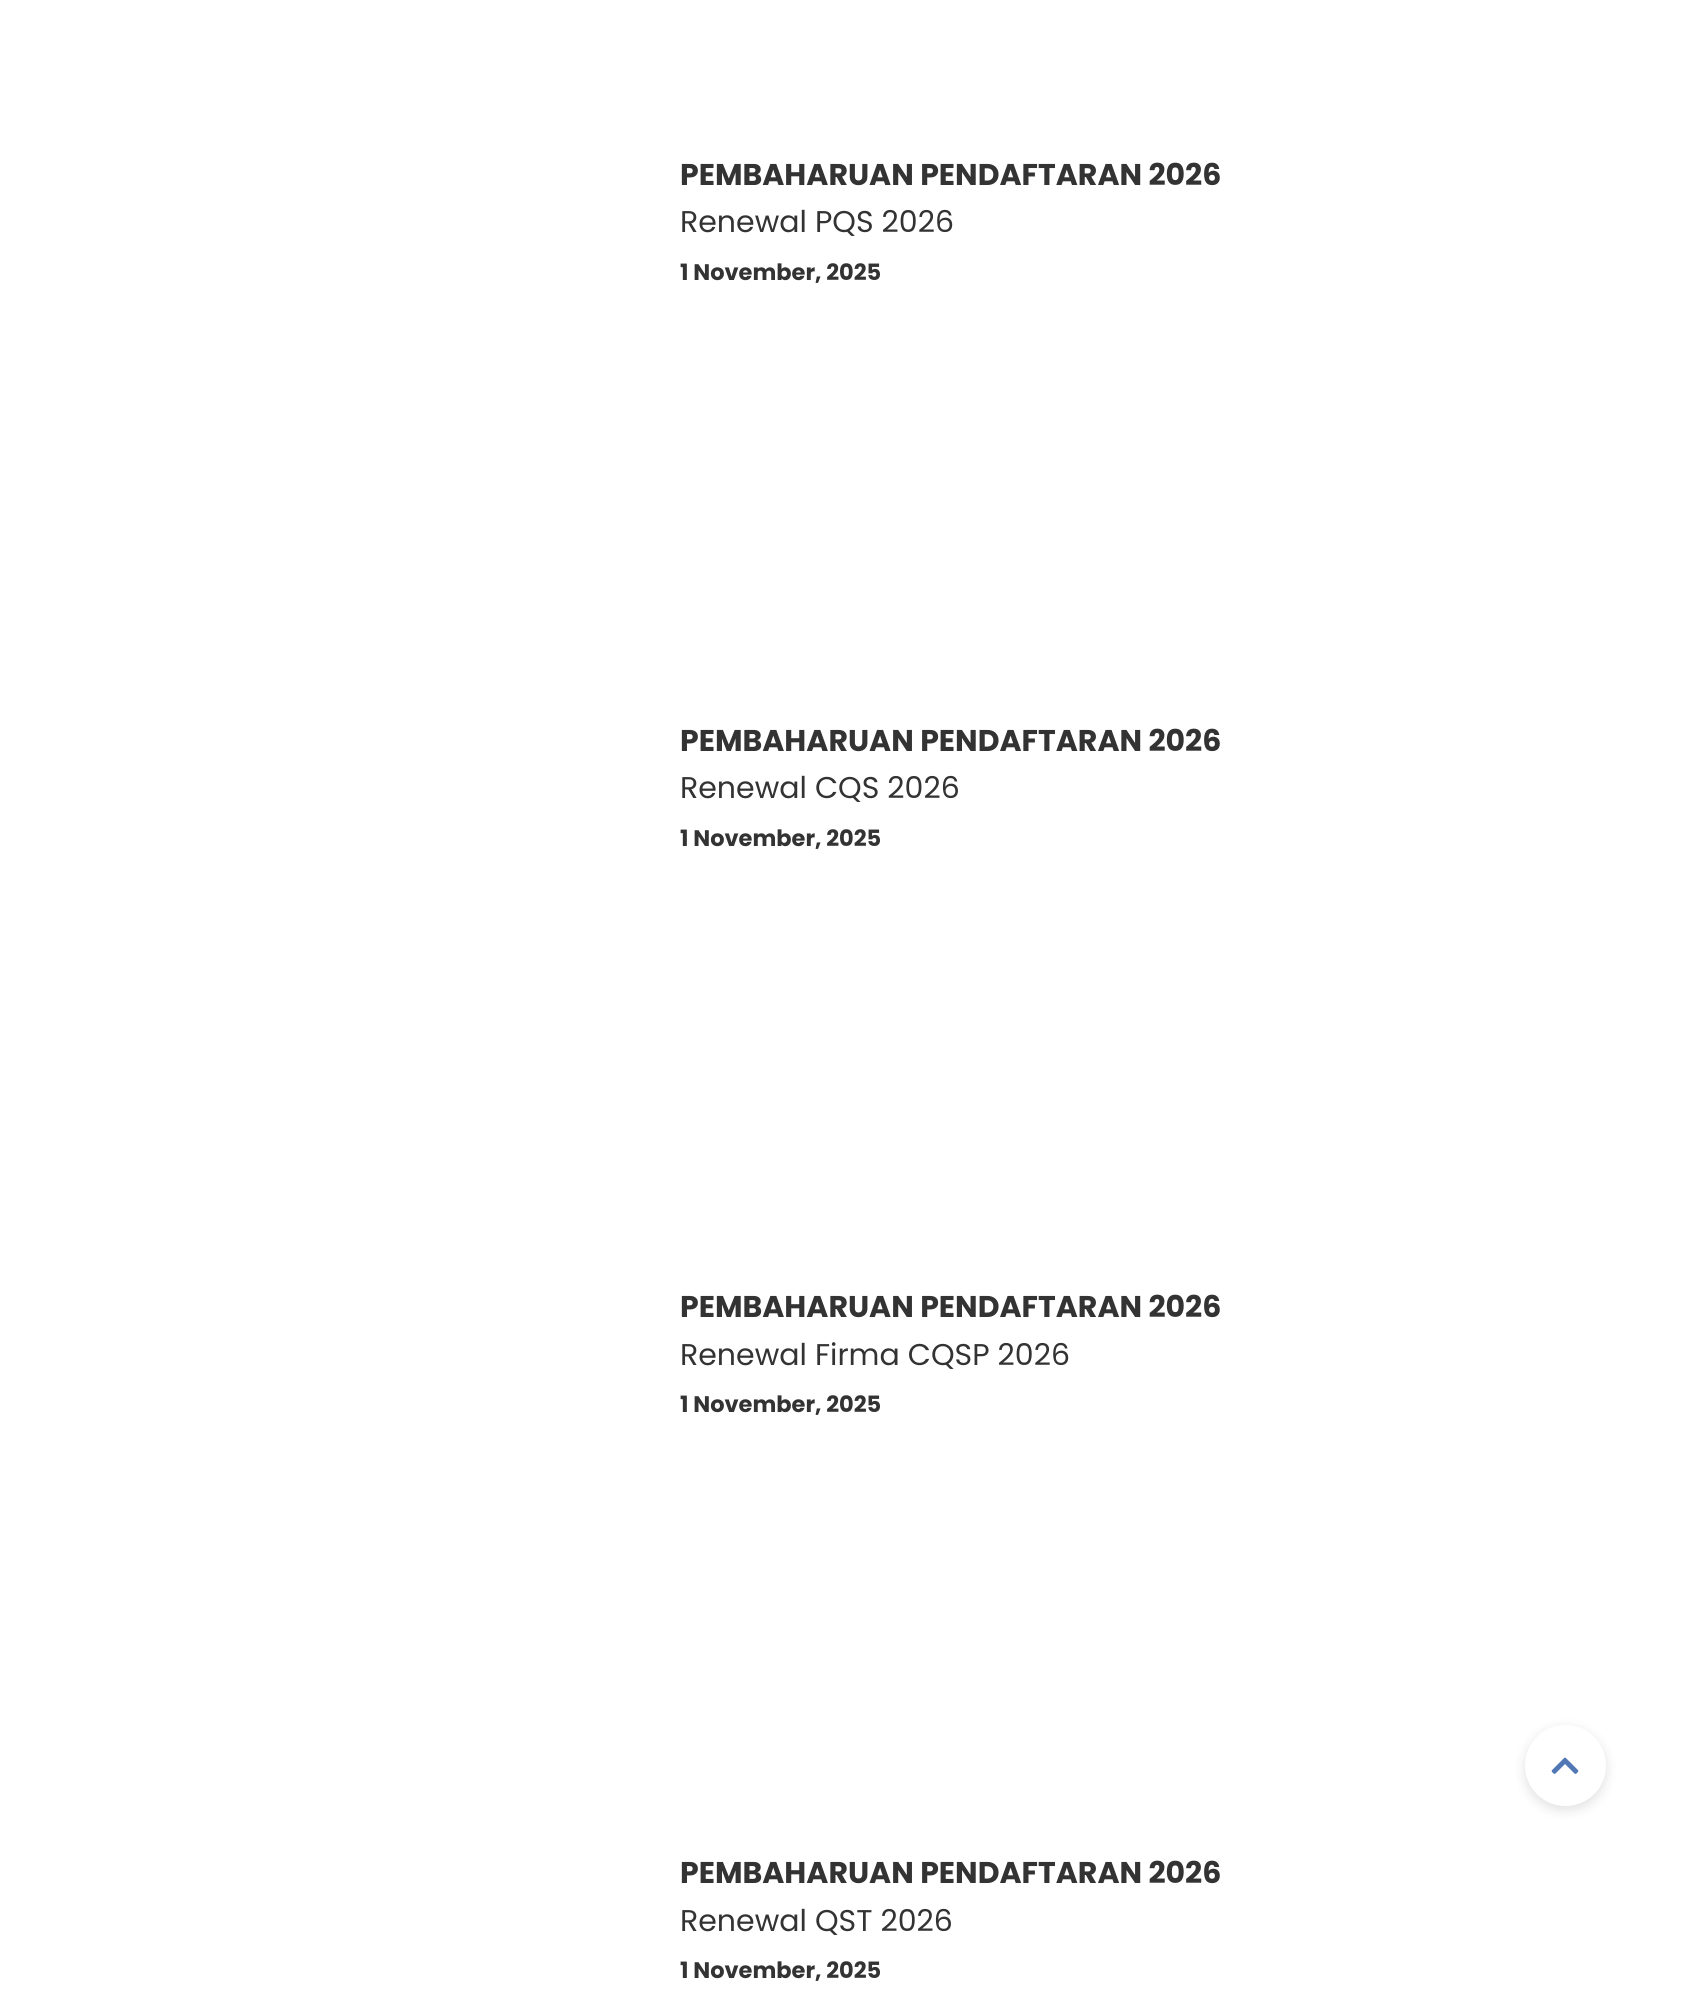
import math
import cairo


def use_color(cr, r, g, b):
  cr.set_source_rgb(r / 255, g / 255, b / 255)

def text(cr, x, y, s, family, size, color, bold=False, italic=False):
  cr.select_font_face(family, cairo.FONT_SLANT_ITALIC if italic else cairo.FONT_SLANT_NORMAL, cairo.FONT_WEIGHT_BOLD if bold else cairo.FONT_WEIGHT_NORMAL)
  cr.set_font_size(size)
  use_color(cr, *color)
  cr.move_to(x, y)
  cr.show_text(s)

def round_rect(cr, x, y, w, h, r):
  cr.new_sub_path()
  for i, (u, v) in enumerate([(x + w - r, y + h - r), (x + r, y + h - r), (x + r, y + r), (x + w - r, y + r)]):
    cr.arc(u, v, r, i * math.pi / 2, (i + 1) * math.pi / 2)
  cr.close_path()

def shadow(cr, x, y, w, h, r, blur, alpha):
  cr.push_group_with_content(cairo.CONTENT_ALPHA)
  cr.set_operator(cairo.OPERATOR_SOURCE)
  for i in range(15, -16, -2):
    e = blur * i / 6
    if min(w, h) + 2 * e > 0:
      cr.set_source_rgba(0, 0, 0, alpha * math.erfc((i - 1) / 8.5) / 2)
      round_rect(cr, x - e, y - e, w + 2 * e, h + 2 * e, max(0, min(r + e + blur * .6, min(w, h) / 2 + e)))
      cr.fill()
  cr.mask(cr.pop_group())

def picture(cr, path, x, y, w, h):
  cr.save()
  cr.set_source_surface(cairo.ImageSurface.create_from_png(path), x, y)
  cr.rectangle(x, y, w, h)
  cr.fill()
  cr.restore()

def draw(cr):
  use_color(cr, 255, 255, 255)
  cr.paint()
  cr.save()
  cr.rectangle(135, 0, 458, 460)
  cr.clip()
  cr.set_fill_rule(cairo.FILL_RULE_EVEN_ODD)
  cr.new_path()
  cr.move_to(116, 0)
  cr.line_to(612, 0)
  cr.line_to(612, 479)
  cr.line_to(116, 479)
  cr.close_path()
  cr.move_to(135, -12)
  cr.line_to(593, -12)
  cr.line_to(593, 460)
  cr.line_to(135, 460)
  cr.close_path()
  cr.clip()
  use_color(cr, 0, 0, 0)
  shadow(cr, 135, -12, 458, 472, 0, 6, 0.5)
  cr.restore()
  cr.save()
  cr.rectangle(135, 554, 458, 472)
  cr.clip()
  cr.set_fill_rule(cairo.FILL_RULE_EVEN_ODD)
  cr.new_path()
  cr.move_to(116, 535)
  cr.line_to(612, 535)
  cr.line_to(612, 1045)
  cr.line_to(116, 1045)
  cr.close_path()
  cr.move_to(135, 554)
  cr.line_to(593, 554)
  cr.line_to(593, 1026)
  cr.line_to(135, 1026)
  cr.close_path()
  cr.clip()
  use_color(cr, 0, 0, 0)
  shadow(cr, 135, 554, 458, 472, 0, 6, 0.5)
  cr.restore()
  cr.save()
  cr.rectangle(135, 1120, 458, 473)
  cr.clip()
  cr.set_fill_rule(cairo.FILL_RULE_EVEN_ODD)
  cr.new_path()
  cr.move_to(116, 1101)
  cr.line_to(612, 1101)
  cr.line_to(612, 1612)
  cr.line_to(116, 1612)
  cr.close_path()
  cr.move_to(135, 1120)
  cr.line_to(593, 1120)
  cr.line_to(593, 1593)
  cr.line_to(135, 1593)
  cr.close_path()
  cr.clip()
  use_color(cr, 0, 0, 0)
  shadow(cr, 135, 1120, 458, 473, 0, 6, 0.5)
  cr.restore()
  cr.save()
  cr.rectangle(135, 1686, 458, 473)
  cr.clip()
  cr.set_fill_rule(cairo.FILL_RULE_EVEN_ODD)
  cr.new_path()
  cr.move_to(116, 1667)
  cr.line_to(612, 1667)
  cr.line_to(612, 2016)
  cr.line_to(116, 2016)
  cr.close_path()
  cr.move_to(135, 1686)
  cr.line_to(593, 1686)
  cr.line_to(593, 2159)
  cr.line_to(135, 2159)
  cr.close_path()
  cr.clip()
  use_color(cr, 0, 0, 0)
  shadow(cr, 135, 1686, 458, 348, 0, 6, 0.5)
  cr.restore()
  use_color(cr, 52, 52, 52)
  shadow(cr, 1525, 1729, 81, 81, 40.5, 6, 0.15)
  use_color(cr, 255, 255, 255)
  cr.arc(1565.5, 1765.5, 40.5, 0, 2 * math.pi)
  cr.fill()
  picture(cr, "img_01.png", 1551, 1757, 28, 17)
  text(cr, 680, 185, "PEMBAHARUAN PENDAFTARAN 2026", "Poppins", 30, (51, 51, 51), bold=True)
  text(cr, 680, 232, "Renewal PQS 2026", "Poppins", 30, (51, 51, 51))
  text(cr, 680, 280, "1 November, 2025", "Poppins", 22.5, (51, 51, 51), bold=True)
  text(cr, 680, 751, "PEMBAHARUAN PENDAFTARAN 2026", "Poppins", 30, (51, 51, 51), bold=True)
  text(cr, 680, 798, "Renewal CQS 2026", "Poppins", 30, (51, 51, 51))
  text(cr, 680, 846, "1 November, 2025", "Poppins", 22.5, (51, 51, 51), bold=True)
  text(cr, 680, 1317, "PEMBAHARUAN PENDAFTARAN 2026", "Poppins", 30, (51, 51, 51), bold=True)
  text(cr, 680, 1365, "Renewal Firma CQSP 2026", "Poppins", 30, (51, 51, 51))
  text(cr, 680, 1412, "1 November, 2025", "Poppins", 22.5, (51, 51, 51), bold=True)
  text(cr, 680, 1883, "PEMBAHARUAN PENDAFTARAN 2026", "Poppins", 30, (51, 51, 51), bold=True)
  text(cr, 680, 1931, "Renewal QST 2026", "Poppins", 30, (51, 51, 51))
  text(cr, 680, 1978, "1 November, 2025", "Poppins", 22.5, (51, 51, 51), bold=True)


surface = cairo.ImageSurface(cairo.FORMAT_RGB24, 1693, 2016)
cr = cairo.Context(surface)
options = cairo.FontOptions()
options.set_hint_metrics(cairo.HINT_METRICS_OFF)
options.set_hint_style(cairo.HINT_STYLE_NONE)
cr.set_font_options(options)
cr.set_miter_limit(4)
draw(cr)
surface.write_to_png("out.png")
